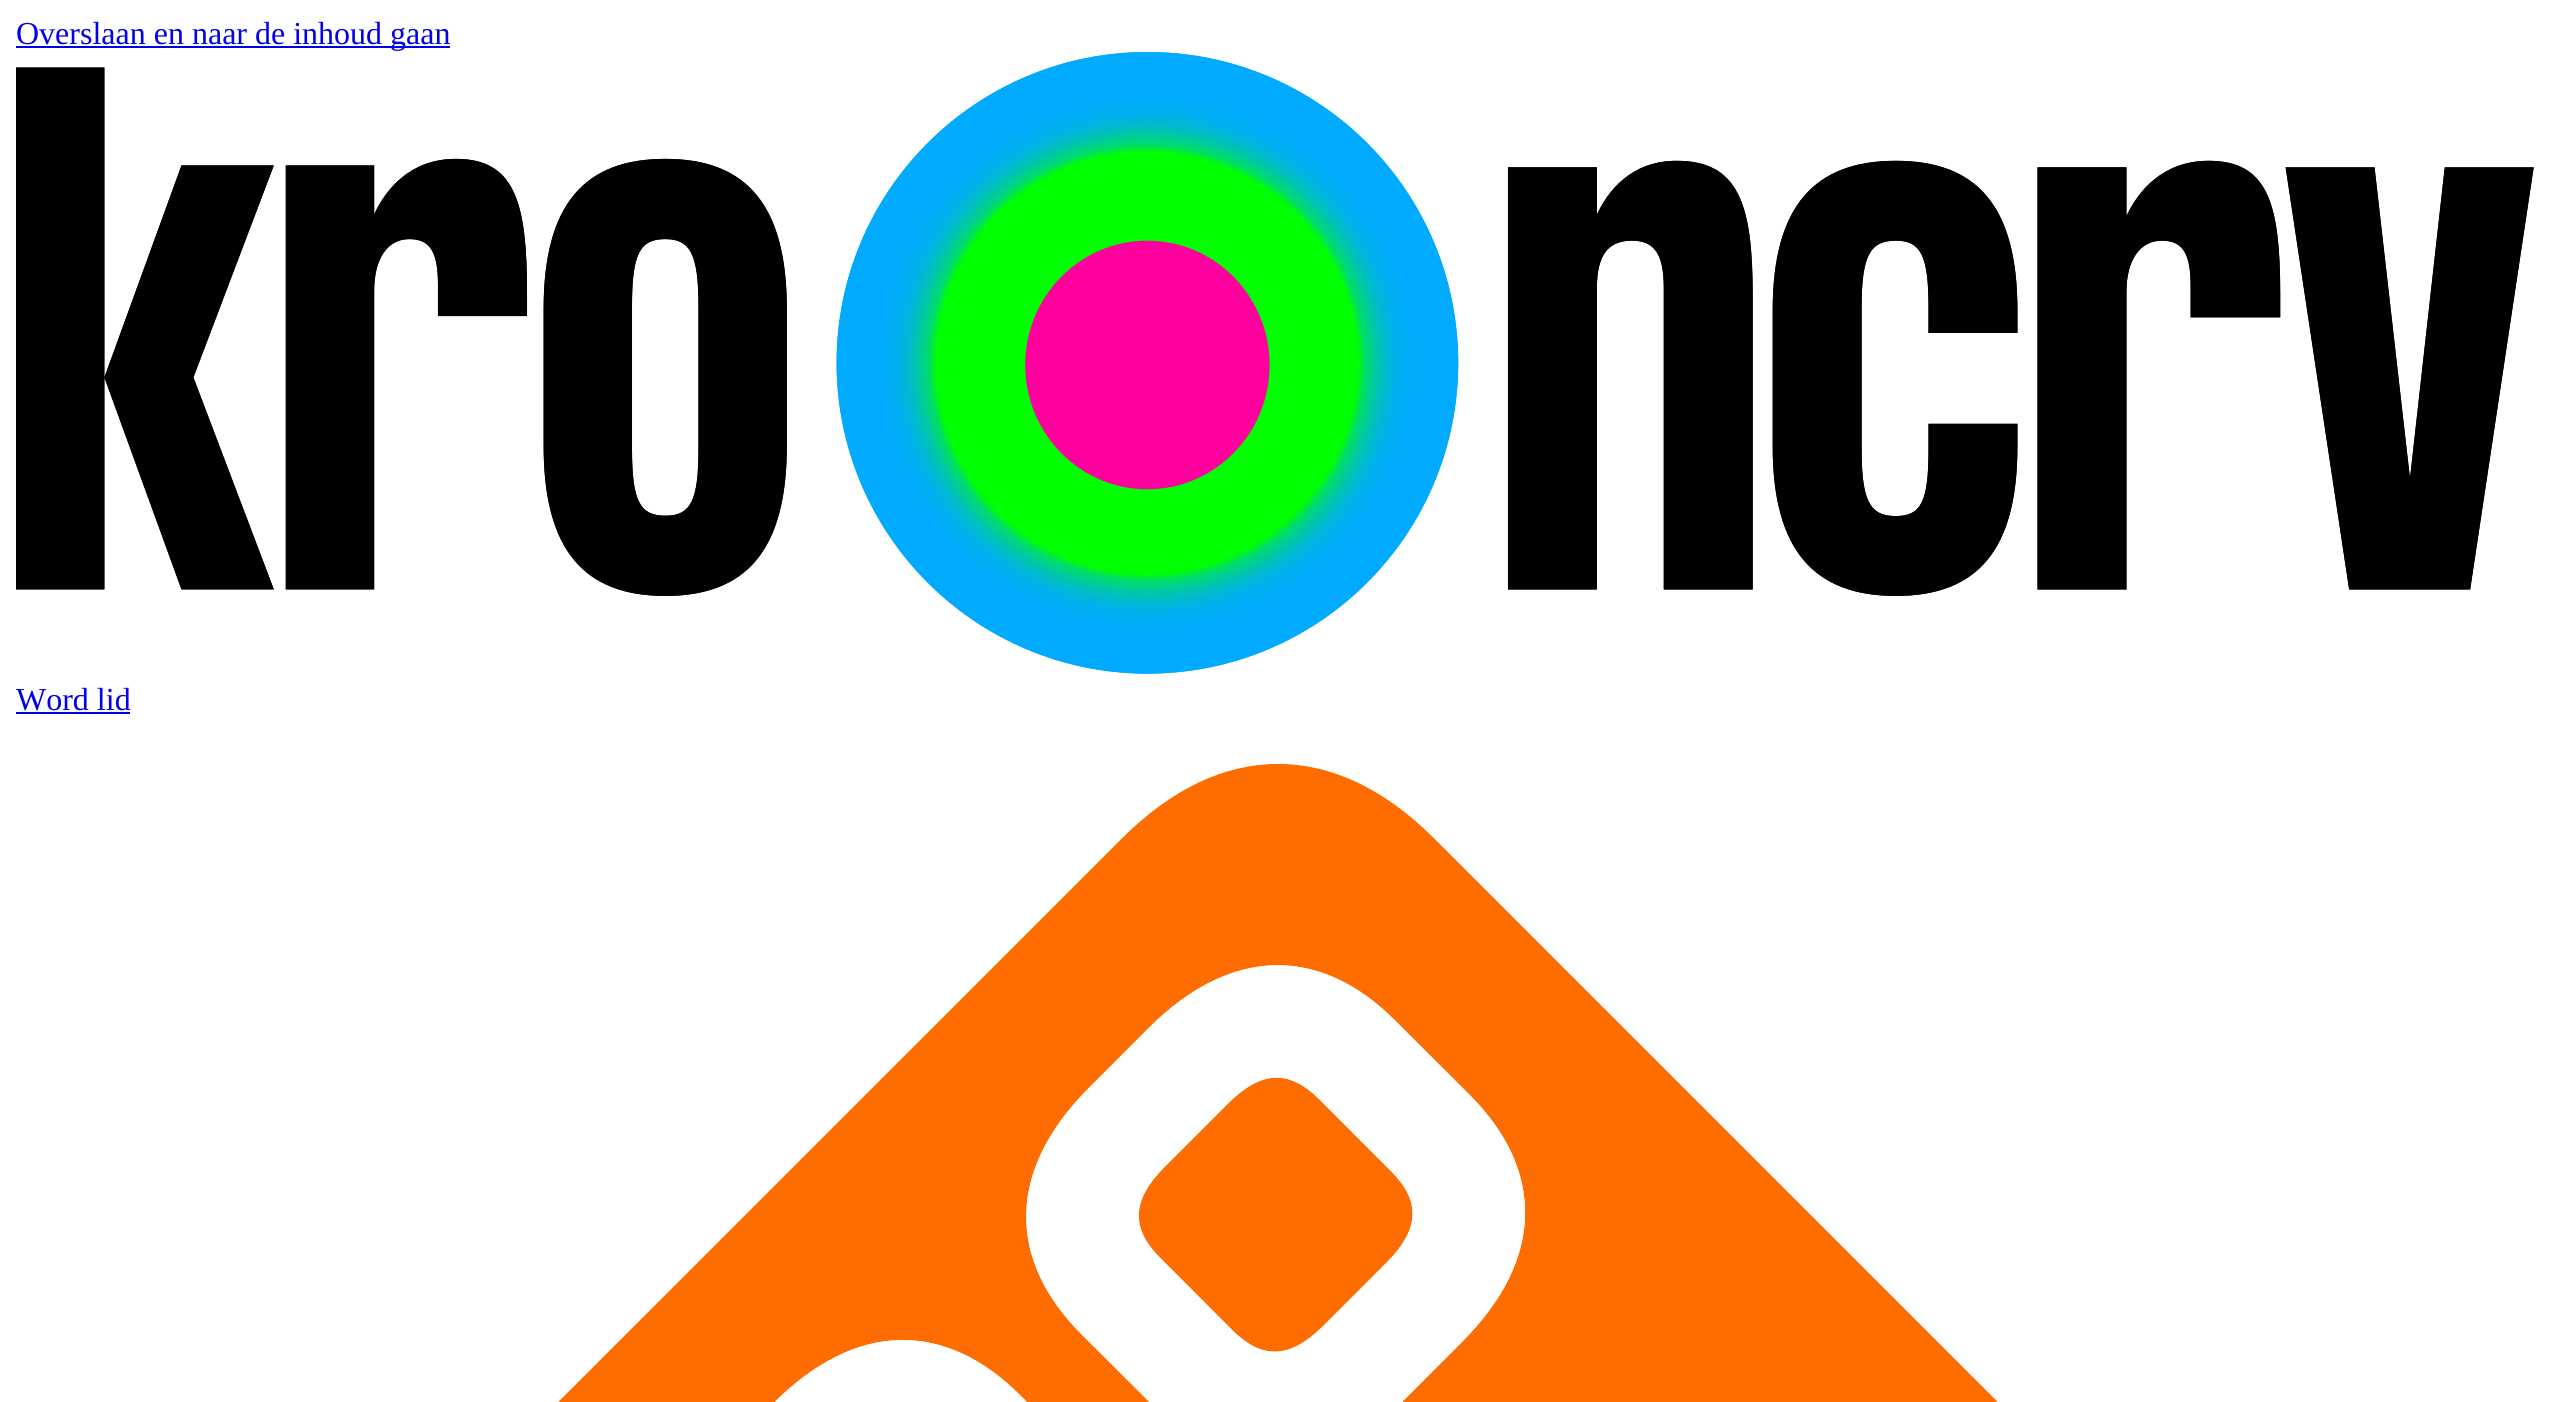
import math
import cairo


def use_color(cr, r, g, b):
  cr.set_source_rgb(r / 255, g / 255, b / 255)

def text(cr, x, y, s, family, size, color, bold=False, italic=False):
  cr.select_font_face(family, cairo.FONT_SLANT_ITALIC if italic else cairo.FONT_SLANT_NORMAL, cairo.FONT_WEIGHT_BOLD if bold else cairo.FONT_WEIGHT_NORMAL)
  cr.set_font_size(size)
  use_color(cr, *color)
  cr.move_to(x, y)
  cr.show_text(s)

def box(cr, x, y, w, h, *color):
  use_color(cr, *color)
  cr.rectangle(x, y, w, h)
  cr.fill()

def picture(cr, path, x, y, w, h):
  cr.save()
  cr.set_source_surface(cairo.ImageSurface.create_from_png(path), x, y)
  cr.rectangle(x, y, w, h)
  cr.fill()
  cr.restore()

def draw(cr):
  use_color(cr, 255, 255, 255)
  cr.paint()
  box(cr, 16, 46, 434, 2, 0, 0, 238)
  picture(cr, "img_01.png", 16, 52, 2518, 622)
  box(cr, 16, 712, 114, 2, 0, 0, 238)
  picture(cr, "img_02.png", 558, 763, 1440, 639)
  text(cr, 16, 44, "Overslaan en naar de inhoud gaan", "Liberation Serif", 32, (0, 0, 238))
  text(cr, 16, 710, "Word lid", "Liberation Serif", 32, (0, 0, 238))


surface = cairo.ImageSurface(cairo.FORMAT_RGB24, 2555, 1402)
cr = cairo.Context(surface)
options = cairo.FontOptions()
options.set_hint_metrics(cairo.HINT_METRICS_OFF)
options.set_hint_style(cairo.HINT_STYLE_NONE)
cr.set_font_options(options)
cr.set_miter_limit(4)
draw(cr)
surface.write_to_png("out.png")
